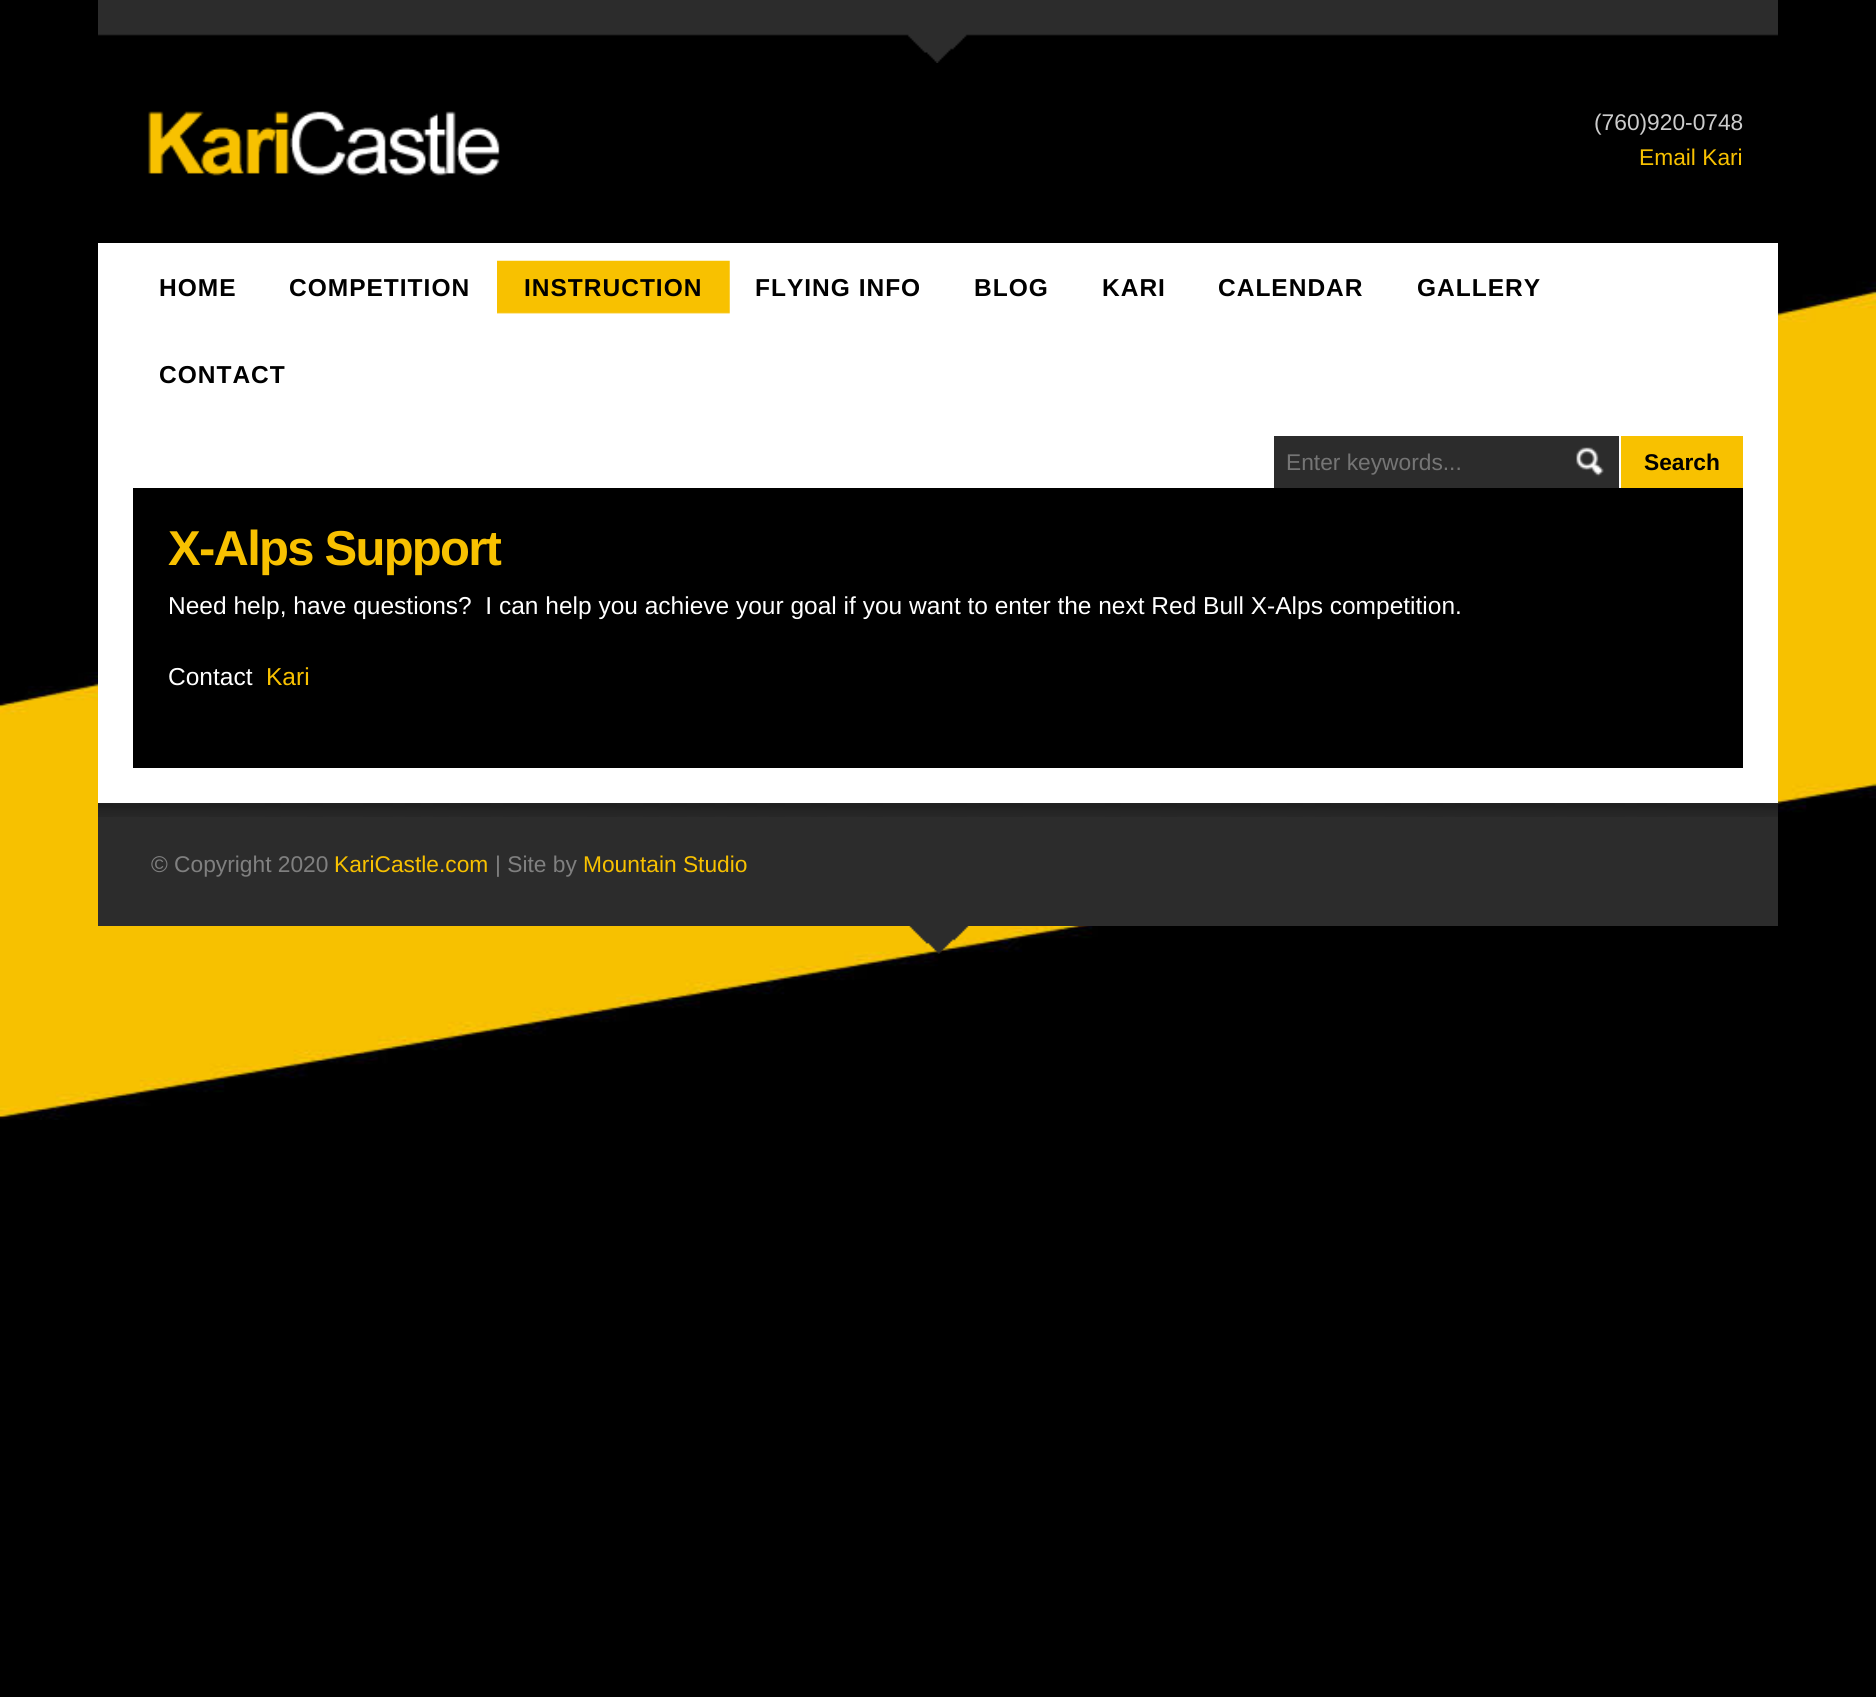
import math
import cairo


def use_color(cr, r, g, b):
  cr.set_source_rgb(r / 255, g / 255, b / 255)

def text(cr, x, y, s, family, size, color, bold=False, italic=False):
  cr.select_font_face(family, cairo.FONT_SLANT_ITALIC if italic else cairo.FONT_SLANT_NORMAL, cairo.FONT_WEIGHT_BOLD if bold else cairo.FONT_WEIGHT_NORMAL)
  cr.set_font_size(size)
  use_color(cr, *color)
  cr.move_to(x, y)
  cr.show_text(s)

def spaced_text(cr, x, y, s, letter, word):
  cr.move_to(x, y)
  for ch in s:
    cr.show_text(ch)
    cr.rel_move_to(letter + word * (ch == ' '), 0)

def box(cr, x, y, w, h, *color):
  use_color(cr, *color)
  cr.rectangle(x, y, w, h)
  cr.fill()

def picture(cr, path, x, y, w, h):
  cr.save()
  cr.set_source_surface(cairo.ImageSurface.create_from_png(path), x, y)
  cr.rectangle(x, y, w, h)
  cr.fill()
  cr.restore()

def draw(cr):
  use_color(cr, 0, 0, 0)
  cr.paint()
  picture(cr, "img_01.png", 0, 280, 1876, 840)
  picture(cr, "img_02.png", 98, 0, 1680, 63)
  picture(cr, "img_03.png", 148, 111, 352, 65)
  box(cr, 98, 243, 1680, 560, 255, 255, 255)
  picture(cr, "img_04.png", 497, 260, 233, 54)
  box(cr, 1274, 436, 345, 52, 44, 44, 44)
  picture(cr, "img_05.png", 1576, 447, 28, 30)
  box(cr, 1621, 436, 122, 52, 248, 193, 0)
  box(cr, 133, 488, 1610, 280, 0, 0, 0)
  box(cr, 98, 803, 1680, 123, 44, 44, 44)
  picture(cr, "img_06.png", 98, 803, 1680, 14)
  picture(cr, "img_07.png", 909, 926, 60, 28)
  text(cr, 1594, 130, "(760)920-0748", "Liberation Sans", 22.75, (204, 204, 204))
  text(cr, 1639, 165, "Email Kari", "Liberation Sans", 22.75, (248, 193, 0))
  cr.select_font_face("Liberation Sans", cairo.FONT_SLANT_NORMAL, cairo.FONT_WEIGHT_BOLD)
  cr.set_font_size(24.5)
  use_color(cr, 0, 0, 0)
  spaced_text(cr, 159, 296, "HOME", 1, 0)
  spaced_text(cr, 289, 296, "COMPETITION", 1, 0)
  spaced_text(cr, 524, 296, "INSTRUCTION", 1, 0)
  spaced_text(cr, 755, 296, "FLYING INFO", 1, 0)
  spaced_text(cr, 974, 296, "BLOG", 1, 0)
  spaced_text(cr, 1102, 296, "KARI", 1, 0)
  spaced_text(cr, 1218, 296, "CALENDAR", 1, 0)
  spaced_text(cr, 1417, 296, "GALLERY", 1, 0)
  spaced_text(cr, 159, 383, "CONTACT", 1, 0)
  text(cr, 1286, 470, "Enter keywords...", "Liberation Sans", 22.75, (117, 117, 117))
  text(cr, 1644, 470, "Search", "Liberation Sans", 22.75, (0, 0, 0), bold=True)
  cr.set_font_size(49)
  use_color(cr, 248, 193, 0)
  spaced_text(cr, 168, 565, "X-Alps Support", -1.75, 0)
  text(cr, 168, 614, "Need help, have questions?  I can help you achieve your goal if you want to enter the next Red Bull X-Alps competition.", "Liberation Sans", 24.5, (255, 255, 255))
  text(cr, 168, 685, "Contact", "Liberation Sans", 24.5, (255, 255, 255))
  text(cr, 266, 685, "Kari", "Liberation Sans", 24.5, (248, 193, 0))
  text(cr, 151, 872, "© Copyright 2020", "Liberation Sans", 22.75, (128, 128, 128))
  text(cr, 334, 872, "KariCastle.com", "Liberation Sans", 22.75, (248, 193, 0))
  text(cr, 495, 872, "| Site by", "Liberation Sans", 22.75, (128, 128, 128))
  text(cr, 583, 872, "Mountain Studio", "Liberation Sans", 22.75, (248, 193, 0))


surface = cairo.ImageSurface(cairo.FORMAT_RGB24, 1876, 1697)
cr = cairo.Context(surface)
options = cairo.FontOptions()
options.set_hint_metrics(cairo.HINT_METRICS_OFF)
options.set_hint_style(cairo.HINT_STYLE_NONE)
cr.set_font_options(options)
cr.set_miter_limit(4)
draw(cr)
surface.write_to_png("out.png")
